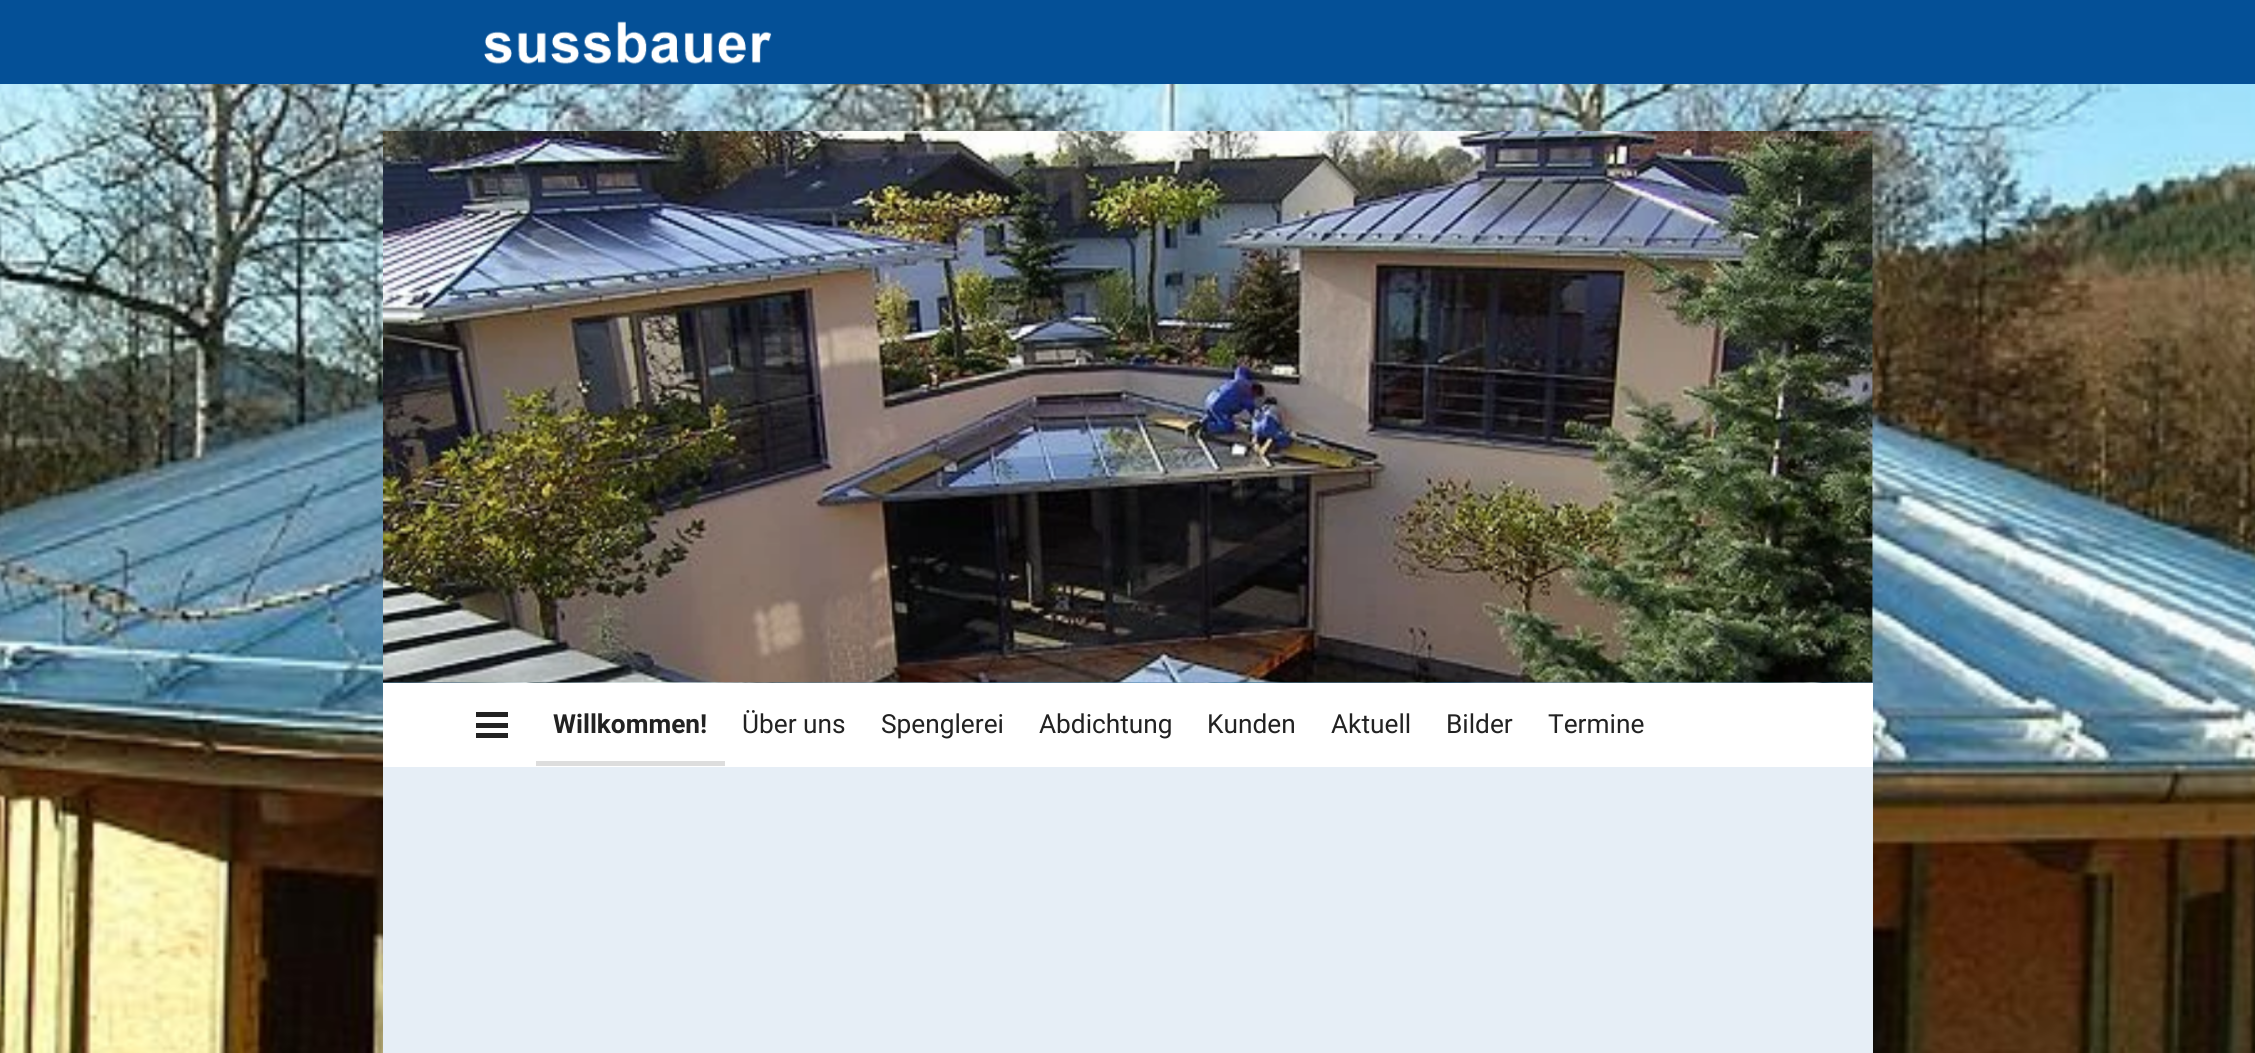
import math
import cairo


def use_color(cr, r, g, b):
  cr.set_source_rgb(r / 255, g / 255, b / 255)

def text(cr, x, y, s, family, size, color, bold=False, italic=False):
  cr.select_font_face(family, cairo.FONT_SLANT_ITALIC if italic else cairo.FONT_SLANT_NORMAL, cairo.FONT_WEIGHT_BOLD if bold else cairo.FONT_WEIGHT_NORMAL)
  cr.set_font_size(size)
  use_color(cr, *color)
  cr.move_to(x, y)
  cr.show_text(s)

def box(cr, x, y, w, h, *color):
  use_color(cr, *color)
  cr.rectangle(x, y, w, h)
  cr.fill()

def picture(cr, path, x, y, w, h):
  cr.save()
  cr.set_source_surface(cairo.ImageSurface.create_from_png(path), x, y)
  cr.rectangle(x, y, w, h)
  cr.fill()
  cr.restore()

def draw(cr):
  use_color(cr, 255, 255, 255)
  cr.paint()
  picture(cr, "img_01.png", 0, 84, 2255, 969)
  box(cr, 0, 0, 2255, 84, 4, 80, 151)
  picture(cr, "img_02.png", 484, 21, 288, 44)
  picture(cr, "img_03.png", 383, 131, 1490, 552)
  box(cr, 383, 683, 1490, 84, 255, 255, 255)
  box(cr, 476, 712, 32, 5, 34, 34, 34)
  box(cr, 476, 723, 32, 5, 34, 34, 34)
  box(cr, 476, 733, 32, 5, 34, 34, 34)
  box(cr, 536, 761, 189, 5, 221, 221, 221)
  box(cr, 383, 767, 1490, 286, 230, 238, 246)
  text(cr, 553, 733, "Willkommen!", "Roboto", 26.25, (34, 34, 34), bold=True)
  text(cr, 742, 733, "Über uns", "Roboto", 26.25, (34, 34, 34))
  text(cr, 881, 733, "Spenglerei", "Roboto", 26.25, (34, 34, 34))
  text(cr, 1039, 733, "Abdichtung", "Roboto", 26.25, (34, 34, 34))
  text(cr, 1207, 733, "Kunden", "Roboto", 26.25, (34, 34, 34))
  text(cr, 1331, 733, "Aktuell", "Roboto", 26.25, (34, 34, 34))
  text(cr, 1446, 733, "Bilder", "Roboto", 26.25, (34, 34, 34))
  text(cr, 1548, 733, "Termine", "Roboto", 26.25, (34, 34, 34))


surface = cairo.ImageSurface(cairo.FORMAT_RGB24, 2255, 1053)
cr = cairo.Context(surface)
options = cairo.FontOptions()
options.set_hint_metrics(cairo.HINT_METRICS_OFF)
options.set_hint_style(cairo.HINT_STYLE_NONE)
cr.set_font_options(options)
cr.set_miter_limit(4)
draw(cr)
surface.write_to_png("out.png")
